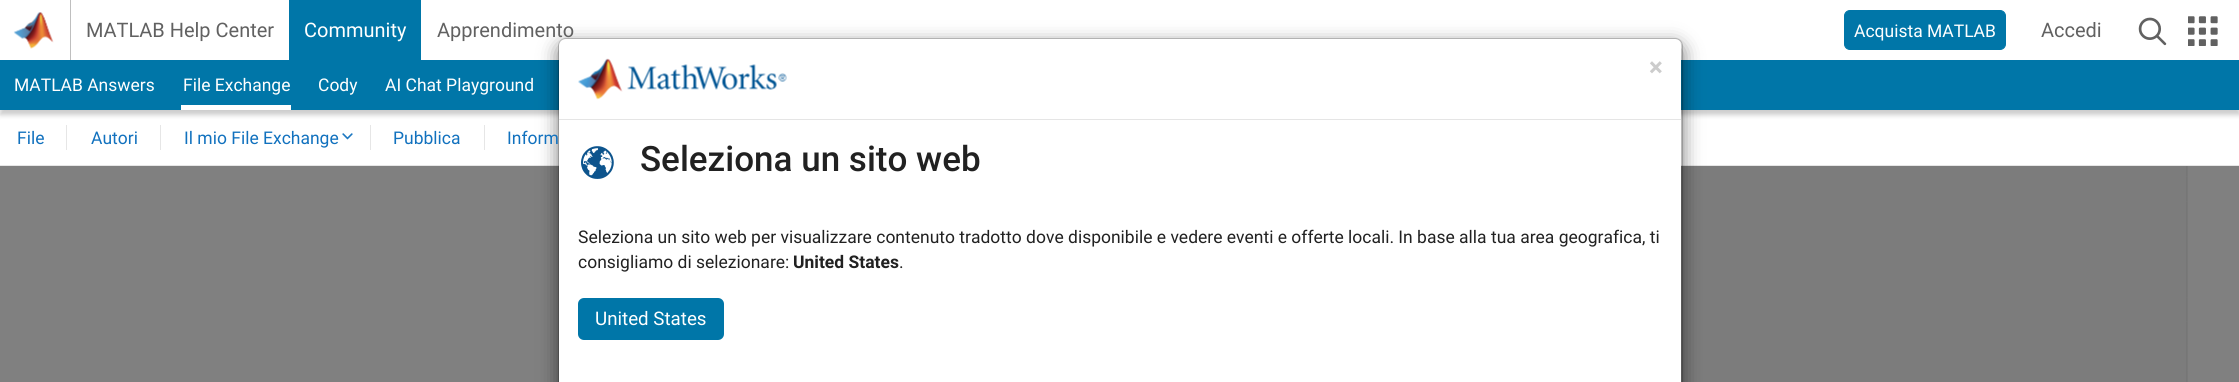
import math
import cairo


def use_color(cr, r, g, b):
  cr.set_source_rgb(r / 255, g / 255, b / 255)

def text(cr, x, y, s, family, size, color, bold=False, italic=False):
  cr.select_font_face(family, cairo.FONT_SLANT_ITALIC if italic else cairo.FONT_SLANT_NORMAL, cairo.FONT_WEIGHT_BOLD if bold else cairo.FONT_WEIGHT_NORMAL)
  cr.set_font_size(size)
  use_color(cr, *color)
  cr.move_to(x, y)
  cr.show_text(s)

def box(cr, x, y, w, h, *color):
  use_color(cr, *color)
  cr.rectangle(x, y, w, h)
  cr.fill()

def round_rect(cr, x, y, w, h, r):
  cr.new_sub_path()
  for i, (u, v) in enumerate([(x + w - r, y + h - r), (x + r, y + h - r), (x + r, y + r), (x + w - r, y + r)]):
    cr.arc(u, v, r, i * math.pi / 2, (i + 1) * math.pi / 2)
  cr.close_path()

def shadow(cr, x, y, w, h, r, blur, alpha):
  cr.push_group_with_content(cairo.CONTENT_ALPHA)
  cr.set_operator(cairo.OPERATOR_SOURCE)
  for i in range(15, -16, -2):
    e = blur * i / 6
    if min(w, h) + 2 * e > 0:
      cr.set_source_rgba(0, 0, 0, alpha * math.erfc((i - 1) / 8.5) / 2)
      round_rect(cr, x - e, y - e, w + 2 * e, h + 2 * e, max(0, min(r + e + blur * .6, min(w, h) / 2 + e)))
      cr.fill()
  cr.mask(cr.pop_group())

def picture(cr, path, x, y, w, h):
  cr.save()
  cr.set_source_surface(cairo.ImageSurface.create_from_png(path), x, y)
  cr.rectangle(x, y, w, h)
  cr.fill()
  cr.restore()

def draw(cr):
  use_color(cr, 128, 128, 128)
  cr.paint()
  box(cr, 0, 0, 2239, 60, 255, 255, 255)
  box(cr, 70, 0, 1, 60, 191, 191, 191)
  picture(cr, "img_01.png", 13, 12, 41, 37)
  box(cr, 289, 0, 132, 60, 0, 118, 168)
  round_rect(cr, 1844.5, 10.5, 161, 39, 5.5)
  cr.fill_preserve()
  cr.set_line_width(1)
  cr.stroke()
  picture(cr, "img_02.png", 2138, 17, 29, 29)
  picture(cr, "img_03.png", 2188, 16, 30, 30)
  box(cr, 0, 110, 2239, 55, 255, 255, 255)
  use_color(cr, 0, 0, 0)
  shadow(cr, 0, 65, 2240, 50, 0, 2.5, 0.2)
  box(cr, 0, 60, 2239, 50, 0, 118, 168)
  box(cr, 181, 105, 110, 5, 255, 255, 255)
  box(cr, 0, 165, 2239, 1, 230, 230, 230)
  box(cr, 66, 125, 1, 25, 230, 230, 230)
  box(cr, 160, 125, 1, 25, 230, 230, 230)
  picture(cr, "img_04.png", 342, 133, 11, 7)
  box(cr, 370, 125, 1, 25, 230, 230, 230)
  box(cr, 484, 125, 1, 25, 230, 230, 230)
  picture(cr, "img_07.png", 1681, 166, 522, 216)
  use_color(cr, 0, 0, 0)
  shadow(cr, 558, 44, 1125, 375, 8, 9.5, 0.5)
  text(cr, 86, 37, "MATLAB Help Center", "Roboto", 20, (97, 97, 97))
  text(cr, 304, 37, "Community", "Roboto", 20, (255, 255, 255))
  text(cr, 437, 37, "Apprendimento", "Roboto", 20, (97, 97, 97))
  text(cr, 1854, 37, "Acquista MATLAB", "Roboto", 17.5, (255, 255, 255))
  text(cr, 2041, 37, "Accedi", "Roboto", 20, (97, 97, 97))
  text(cr, 14, 91, "MATLAB Answers", "Roboto", 17.5, (255, 255, 255))
  text(cr, 183, 91, "File Exchange", "Roboto", 17.5, (255, 255, 255))
  text(cr, 318, 91, "Cody", "Roboto", 17.5, (255, 255, 255))
  text(cr, 385, 91, "AI Chat Playground", "Roboto", 17.5, (255, 255, 255))
  text(cr, 17, 144, "File", "Roboto", 17.5, (17, 113, 190))
  text(cr, 91, 144, "Autori", "Roboto", 17.5, (17, 113, 190))
  text(cr, 184, 144, "Il mio File Exchange", "Roboto", 17.5, (17, 113, 190))
  text(cr, 393, 144, "Pubblica", "Roboto", 17.5, (17, 113, 190))
  text(cr, 507, 144, "Inform", "Roboto", 17.5, (17, 113, 190))
  use_color(cr, 255, 255, 255)
  cr.new_path()
  cr.move_to(565, 39)
  cr.line_to(1675, 39)
  cr.curve_to(1678.5, 39, 1681, 41.5, 1681, 45)
  cr.line_to(1681, 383)
  cr.line_to(559, 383)
  cr.line_to(559, 45)
  cr.curve_to(559, 41.5, 561.5, 39, 565, 39)
  cr.close_path()
  cr.fill()
  round_rect(cr, 558.5, 38.5, 1124, 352, 7.5)
  cr.set_source_rgba(0, 0, 0, 0.2)
  cr.stroke()
  box(cr, 559, 119, 1122, 1, 229, 229, 229)
  picture(cr, "img_05.png", 578, 58, 209, 42)
  text(cr, 1649, 76, "×", "Roboto", 26, (204, 204, 204), bold=True)
  picture(cr, "img_06.png", 581, 146, 33, 33)
  text(cr, 640, 171, "Seleziona un sito web", "Roboto Medium", 35, (33, 33, 33))
  text(cr, 578, 243, "Seleziona un sito web per visualizzare contenuto tradotto dove disponibile e vedere eventi e offerte locali. In base alla tua area geografica, ti", "Roboto", 17.5, (33, 33, 33))
  text(cr, 578, 268, "consigliamo di selezionare:", "Roboto", 17.5, (33, 33, 33))
  text(cr, 793, 268, "United States", "Roboto", 17.5, (33, 33, 33), bold=True)
  text(cr, 899, 268, ".", "Roboto", 17.5, (33, 33, 33))
  use_color(cr, 0, 118, 168)
  round_rect(cr, 578, 298, 146, 42, 6)
  cr.fill()
  text(cr, 595, 325, "United States", "Roboto", 18.75, (255, 255, 255))


surface = cairo.ImageSurface(cairo.FORMAT_RGB24, 2239, 382)
cr = cairo.Context(surface)
options = cairo.FontOptions()
options.set_hint_metrics(cairo.HINT_METRICS_OFF)
options.set_hint_style(cairo.HINT_STYLE_NONE)
cr.set_font_options(options)
cr.set_miter_limit(4)
draw(cr)
surface.write_to_png("out.png")
